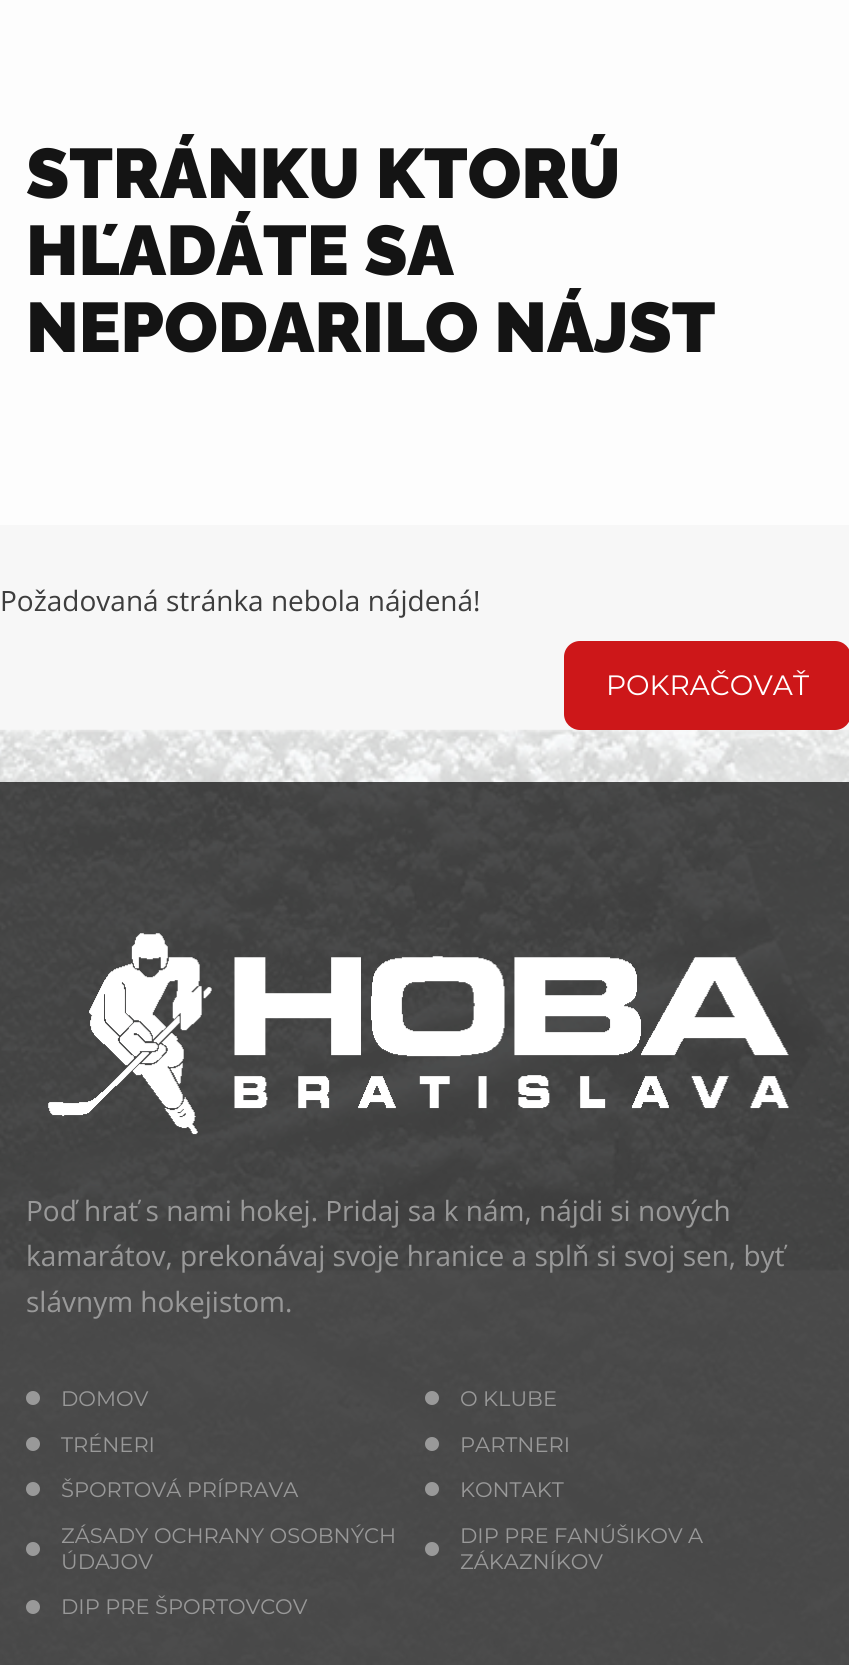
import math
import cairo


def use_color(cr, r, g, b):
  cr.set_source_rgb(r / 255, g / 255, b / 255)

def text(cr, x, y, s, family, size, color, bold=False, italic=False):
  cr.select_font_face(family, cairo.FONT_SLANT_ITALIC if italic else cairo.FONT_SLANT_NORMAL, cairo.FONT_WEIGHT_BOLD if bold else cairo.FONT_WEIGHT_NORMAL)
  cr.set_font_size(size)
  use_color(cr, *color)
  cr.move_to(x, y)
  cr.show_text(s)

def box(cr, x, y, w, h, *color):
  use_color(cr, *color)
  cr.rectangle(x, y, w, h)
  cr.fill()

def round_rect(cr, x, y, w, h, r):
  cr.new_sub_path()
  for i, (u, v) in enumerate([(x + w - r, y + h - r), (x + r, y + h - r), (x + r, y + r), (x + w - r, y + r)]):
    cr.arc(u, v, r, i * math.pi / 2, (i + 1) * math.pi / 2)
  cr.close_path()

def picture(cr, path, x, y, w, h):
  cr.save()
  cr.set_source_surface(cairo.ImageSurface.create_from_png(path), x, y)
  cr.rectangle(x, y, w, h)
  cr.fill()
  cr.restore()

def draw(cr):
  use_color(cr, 247, 247, 247)
  cr.paint()
  box(cr, 0, 782, 849, 489, 74, 74, 74)
  cr.save()
  cr.rectangle(0, 0, 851, 525)
  cr.clip()
  use_color(cr, 253, 253, 253)
  cr.new_path()
  cr.move_to(-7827, -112)
  cr.line_to(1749, -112)
  cr.line_to(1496, 1323)
  cr.line_to(-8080, 1323)
  cr.close_path()
  cr.fill()
  cr.restore()
  picture(cr, "img_01.png", 0, 729, 849, 936)
  use_color(cr, 205, 23, 25)
  round_rect(cr, 564, 641, 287, 89, 16)
  cr.fill()
  picture(cr, "img_02.png", 48, 933, 741, 202)
  use_color(cr, 153, 153, 153)
  cr.arc(33, 1398, 7, 0, 2 * math.pi)
  cr.fill()
  cr.arc(432, 1398, 7, 0, 2 * math.pi)
  cr.fill()
  cr.arc(33, 1444, 7, 0, 2 * math.pi)
  cr.fill()
  cr.arc(432, 1444, 7, 0, 2 * math.pi)
  cr.fill()
  cr.arc(33, 1489, 7, 0, 2 * math.pi)
  cr.fill()
  cr.arc(432, 1489, 7, 0, 2 * math.pi)
  cr.fill()
  cr.arc(33, 1549, 7, 0, 2 * math.pi)
  cr.fill()
  cr.arc(432, 1549, 7, 0, 2 * math.pi)
  cr.fill()
  cr.arc(33, 1607, 7, 0, 2 * math.pi)
  cr.fill()
  text(cr, 26, 198, "STRÁNKU KTORÚ", "Raleway Black", 70, (20, 20, 20))
  text(cr, 26, 275, "HĽADÁTE SA", "Raleway Black", 70, (20, 20, 20))
  text(cr, 26, 352, "NEPODARILO NÁJST", "Raleway Black", 70, (20, 20, 20))
  text(cr, 0, 611, "Požadovaná stránka nebola nájdená!", "Open Sans", 28, (61, 61, 61))
  text(cr, 606, 695, "POKRAČOVAŤ", "Montserrat", 28, (255, 255, 255))
  text(cr, 26, 1221, "Poď hrať s nami hokej. Pridaj sa k nám, nájdi si nových", "Open Sans", 28, (153, 153, 153))
  text(cr, 26, 1266, "kamarátov, prekonávaj svoje hranice a splň si svoj sen, byť", "Open Sans", 28, (153, 153, 153))
  text(cr, 26, 1312, "slávnym hokejistom.", "Open Sans", 28, (153, 153, 153))
  text(cr, 61, 1406, "DOMOV", "Montserrat", 21, (153, 153, 153))
  text(cr, 460, 1406, "O KLUBE", "Montserrat", 21, (153, 153, 153))
  text(cr, 61, 1452, "TRÉNERI", "Montserrat", 21, (153, 153, 153))
  text(cr, 460, 1452, "PARTNERI", "Montserrat", 21, (153, 153, 153))
  text(cr, 61, 1497, "ŠPORTOVÁ PRÍPRAVA", "Montserrat", 21, (153, 153, 153))
  text(cr, 460, 1497, "KONTAKT", "Montserrat", 21, (153, 153, 153))
  text(cr, 61, 1543, "ZÁSADY OCHRANY OSOBNÝCH", "Montserrat", 21, (153, 153, 153))
  text(cr, 61, 1569, "ÚDAJOV", "Montserrat", 21, (153, 153, 153))
  text(cr, 460, 1543, "DIP PRE FANÚŠIKOV A", "Montserrat", 21, (153, 153, 153))
  text(cr, 460, 1569, "ZÁKAZNÍKOV", "Montserrat", 21, (153, 153, 153))
  text(cr, 61, 1614, "DIP PRE ŠPORTOVCOV", "Montserrat", 21, (153, 153, 153))


surface = cairo.ImageSurface(cairo.FORMAT_RGB24, 849, 1665)
cr = cairo.Context(surface)
options = cairo.FontOptions()
options.set_hint_metrics(cairo.HINT_METRICS_OFF)
options.set_hint_style(cairo.HINT_STYLE_NONE)
cr.set_font_options(options)
cr.set_miter_limit(4)
draw(cr)
surface.write_to_png("out.png")
